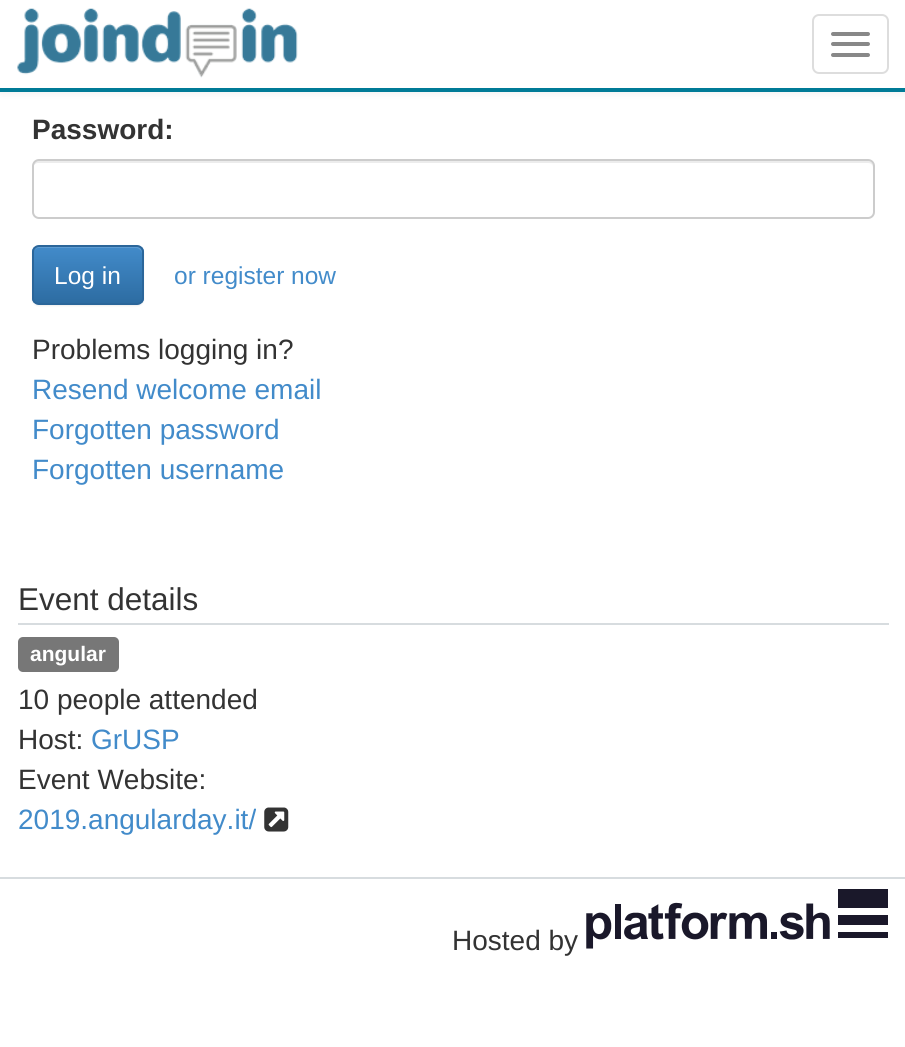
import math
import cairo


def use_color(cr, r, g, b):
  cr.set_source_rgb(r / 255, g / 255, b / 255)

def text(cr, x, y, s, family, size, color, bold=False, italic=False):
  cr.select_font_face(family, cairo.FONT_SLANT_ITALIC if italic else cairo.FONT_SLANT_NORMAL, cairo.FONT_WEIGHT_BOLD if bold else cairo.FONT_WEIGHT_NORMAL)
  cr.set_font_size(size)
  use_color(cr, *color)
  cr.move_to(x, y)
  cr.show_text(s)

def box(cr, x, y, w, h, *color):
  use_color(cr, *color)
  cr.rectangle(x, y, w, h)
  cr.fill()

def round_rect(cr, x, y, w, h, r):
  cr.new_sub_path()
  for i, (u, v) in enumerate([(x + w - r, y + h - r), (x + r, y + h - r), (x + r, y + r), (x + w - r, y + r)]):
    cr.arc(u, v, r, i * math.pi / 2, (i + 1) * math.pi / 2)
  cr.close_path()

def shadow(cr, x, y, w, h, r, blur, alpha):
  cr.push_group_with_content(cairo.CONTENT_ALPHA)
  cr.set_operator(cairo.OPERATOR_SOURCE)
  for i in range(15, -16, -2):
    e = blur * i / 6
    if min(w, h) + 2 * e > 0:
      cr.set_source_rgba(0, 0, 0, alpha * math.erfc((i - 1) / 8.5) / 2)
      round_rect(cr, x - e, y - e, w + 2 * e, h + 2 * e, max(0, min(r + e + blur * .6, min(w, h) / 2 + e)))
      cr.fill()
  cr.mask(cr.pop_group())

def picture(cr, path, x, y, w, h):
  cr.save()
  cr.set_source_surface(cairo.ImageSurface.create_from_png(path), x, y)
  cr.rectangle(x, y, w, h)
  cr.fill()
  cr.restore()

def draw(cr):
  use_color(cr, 255, 255, 255)
  cr.paint()
  use_color(cr, 0, 0, 0)
  shadow(cr, 0, 2, 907, 91, 0, 4.5, 0.07)
  box(cr, 0, 0, 905, 88, 255, 255, 255)
  box(cr, 0, 88, 905, 4, 0, 123, 151)
  picture(cr, "img_01.png", 17, 8, 281, 70)
  round_rect(cr, 813, 15, 75, 58, 6)
  use_color(cr, 221, 221, 221)
  cr.stroke()
  use_color(cr, 136, 136, 136)
  round_rect(cr, 831, 32, 39, 4, 2)
  cr.fill()
  round_rect(cr, 831, 42, 39, 4, 2)
  cr.fill()
  round_rect(cr, 831, 53, 39, 4, 2)
  cr.fill()
  use_color(cr, 236, 236, 236)
  cr.new_path()
  cr.move_to(38, 163)
  cr.line_to(868, 163)
  cr.curve_to(871, 163, 873, 165, 873, 168)
  cr.line_to(873, 166)
  cr.curve_to(873, 163, 871, 161, 868, 161)
  cr.line_to(38, 161)
  cr.curve_to(35, 161, 33, 163, 33, 166)
  cr.line_to(33, 168)
  cr.curve_to(33, 165, 36, 163, 38, 163)
  cr.close_path()
  cr.fill()
  round_rect(cr, 33, 160, 841, 58, 6)
  use_color(cr, 204, 204, 204)
  cr.stroke()
  use_color(cr, 0, 0, 0)
  shadow(cr, 32, 247, 112, 59, 7, 1, 0.07)
  cr.save()
  round_rect(cr, 32, 245, 112, 60, 7)
  cr.clip()
  gradient = cairo.LinearGradient(88, 247, 88, 303)
  gradient.add_color_stop_rgba(0, 0.259, 0.545, 0.792, 1)
  gradient.add_color_stop_rgba(1, 0.176, 0.424, 0.635, 1)
  cr.set_source(gradient)
  cr.rectangle(32, 247, 112, 56)
  cr.fill()
  cr.restore()
  cr.set_source_rgba(1, 1, 1, 0.15)
  cr.new_path()
  cr.move_to(38, 248)
  cr.line_to(136, 248)
  cr.curve_to(139, 248, 142, 251, 142, 254)
  cr.line_to(142, 252)
  cr.curve_to(142, 249, 140, 247, 137, 247)
  cr.line_to(38, 247)
  cr.curve_to(35, 247, 33, 249, 33, 252)
  cr.line_to(33, 254)
  cr.curve_to(33, 251, 36, 248, 38, 248)
  cr.close_path()
  cr.fill()
  round_rect(cr, 33, 246, 110, 58, 6)
  use_color(cr, 43, 102, 154)
  cr.stroke()
  box(cr, 18, 623, 871, 2, 215, 220, 223)
  use_color(cr, 119, 119, 119)
  round_rect(cr, 18, 637, 101, 35, 5)
  cr.fill()
  picture(cr, "img_02.png", 264, 807, 25, 25)
  box(cr, 0, 877, 905, 2, 215, 220, 223)
  picture(cr, "img_03.png", 586, 889, 302, 60)
  text(cr, 32, 139, "Password:", "Liberation Sans", 28, (51, 51, 51), bold=True)
  text(cr, 54, 284, "Log in", "Liberation Sans", 24.5, (255, 255, 255))
  text(cr, 174, 284, "or register now", "Liberation Sans", 24.5, (66, 139, 202))
  text(cr, 32, 359, "Problems logging in?", "Liberation Sans", 28, (51, 51, 51))
  text(cr, 32, 399, "Resend welcome email", "Liberation Sans", 28, (66, 139, 202))
  text(cr, 32, 439, "Forgotten password", "Liberation Sans", 28, (66, 139, 202))
  text(cr, 32, 479, "Forgotten username", "Liberation Sans", 28, (66, 139, 202))
  text(cr, 18, 610, "Event details", "Liberation Sans", 31.5, (51, 51, 51))
  text(cr, 30, 661, "angular", "Liberation Sans", 21, (255, 255, 255), bold=True)
  text(cr, 18, 709, "10 people attended", "Liberation Sans", 28, (51, 51, 51))
  text(cr, 18, 749, "Host:", "Liberation Sans", 28, (51, 51, 51))
  text(cr, 91, 749, "GrUSP", "Liberation Sans", 28, (66, 139, 202))
  text(cr, 18, 789, "Event Website:", "Liberation Sans", 28, (51, 51, 51))
  text(cr, 18, 829, "2019.angularday.it/", "Liberation Sans", 28, (66, 139, 202))
  text(cr, 452, 950, "Hosted by", "Liberation Sans", 28, (51, 51, 51))


surface = cairo.ImageSurface(cairo.FORMAT_RGB24, 905, 1047)
cr = cairo.Context(surface)
options = cairo.FontOptions()
options.set_hint_metrics(cairo.HINT_METRICS_OFF)
options.set_hint_style(cairo.HINT_STYLE_NONE)
cr.set_font_options(options)
cr.set_miter_limit(4)
draw(cr)
surface.write_to_png("out.png")
